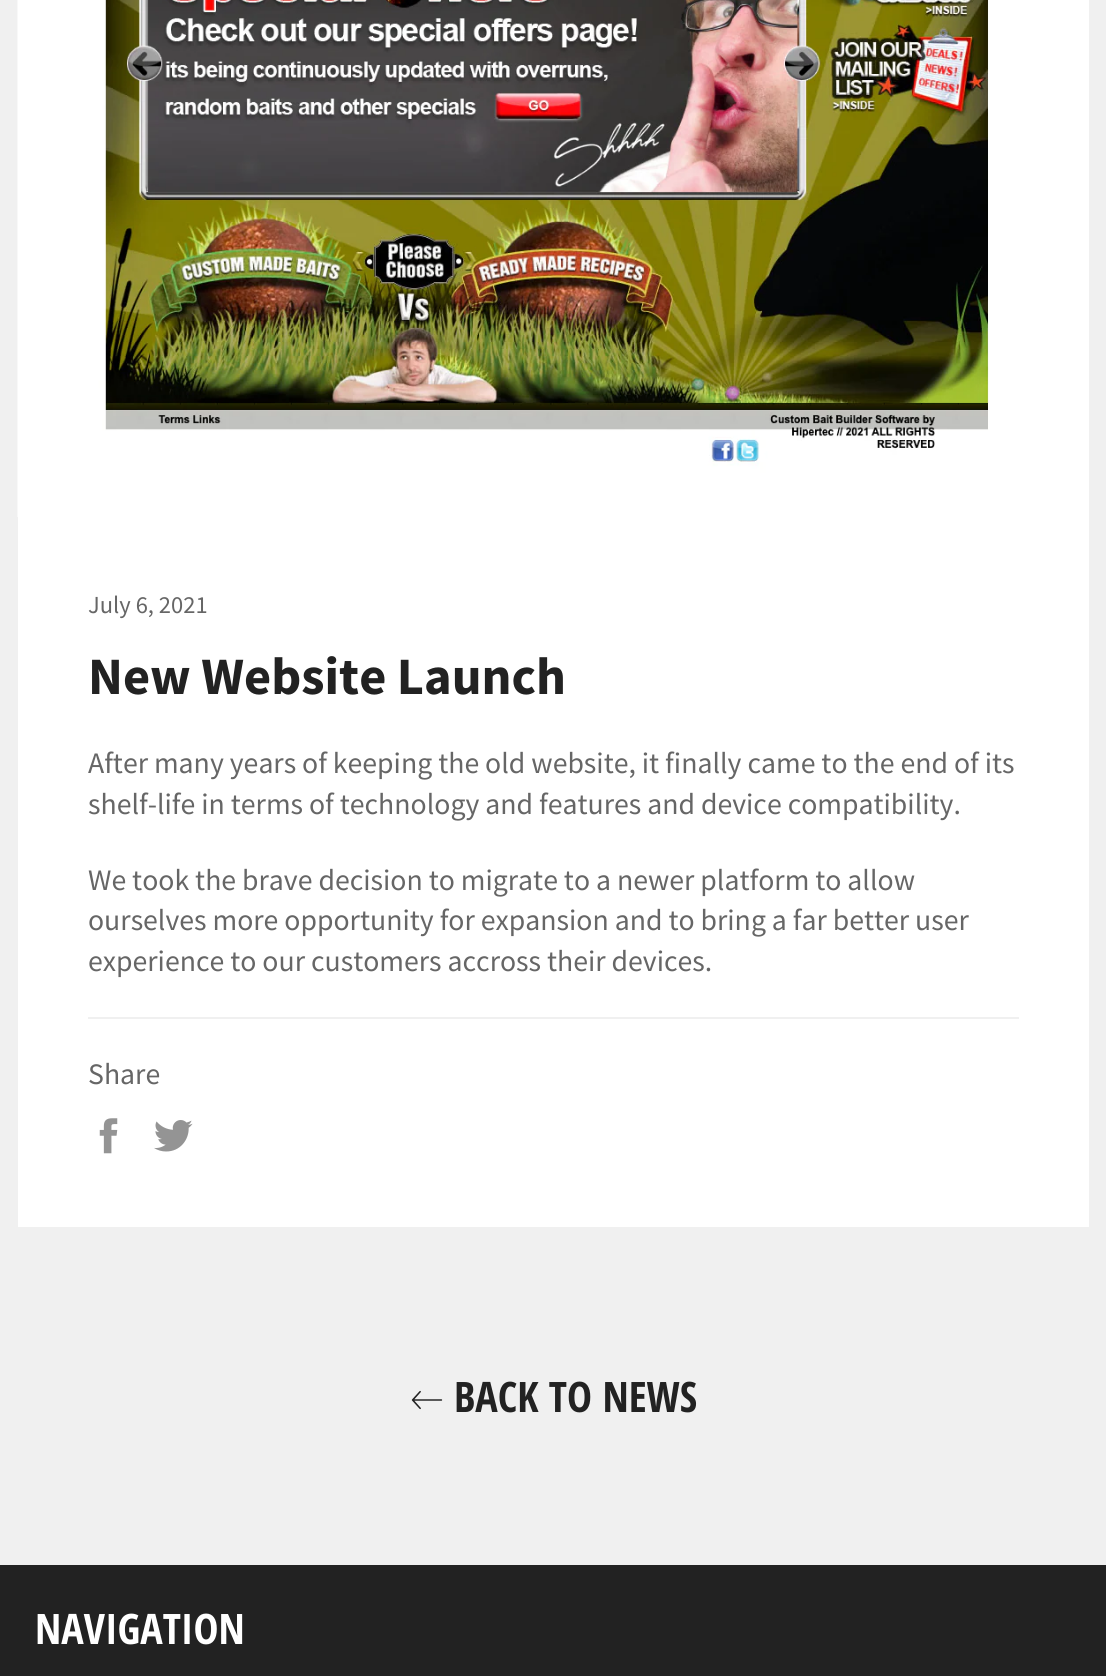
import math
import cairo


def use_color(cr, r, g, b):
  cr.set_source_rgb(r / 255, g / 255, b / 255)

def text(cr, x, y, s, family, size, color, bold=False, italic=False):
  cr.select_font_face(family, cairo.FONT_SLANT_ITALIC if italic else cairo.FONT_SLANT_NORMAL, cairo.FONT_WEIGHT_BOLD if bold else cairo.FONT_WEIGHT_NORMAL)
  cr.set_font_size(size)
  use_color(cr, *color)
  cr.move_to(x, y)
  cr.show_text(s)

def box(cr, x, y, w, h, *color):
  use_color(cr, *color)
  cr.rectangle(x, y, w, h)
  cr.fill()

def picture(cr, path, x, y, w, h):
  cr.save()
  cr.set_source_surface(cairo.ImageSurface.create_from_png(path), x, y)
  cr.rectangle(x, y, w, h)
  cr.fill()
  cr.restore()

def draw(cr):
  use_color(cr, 240, 240, 240)
  cr.paint()
  box(cr, 18, 0, 1071, 1227, 255, 255, 255)
  picture(cr, "img_01.png", 17, 0, 972, 517)
  box(cr, 88, 1017, 931, 2, 240, 240, 240)
  picture(cr, "img_02.png", 99, 1118, 19, 36)
  picture(cr, "img_03.png", 154, 1120, 39, 32)
  picture(cr, "img_04.png", 411, 1390, 32, 20)
  box(cr, 0, 1565, 1106, 111, 34, 34, 34)
  text(cr, 88, 613, "July 6, 2021", "Source Sans Pro", 24.5, (102, 102, 102))
  text(cr, 88, 694, "New Website Launch", "Source Sans Pro", 52.5, (34, 34, 34), bold=True)
  text(cr, 88, 773, "After many years of keeping the old website, it finally came to the end of its", "Source Sans Pro", 29.75, (102, 102, 102))
  text(cr, 88, 814, "shelf-life in terms of technology and features and device compatibility.", "Source Sans Pro", 29.75, (102, 102, 102))
  text(cr, 88, 890, "We took the brave decision to migrate to a newer platform to allow", "Source Sans Pro", 29.75, (102, 102, 102))
  text(cr, 88, 930, "ourselves more opportunity for expansion and to bring a far better user", "Source Sans Pro", 29.75, (102, 102, 102))
  text(cr, 88, 971, "experience to our customers accross their devices.", "Source Sans Pro", 29.75, (102, 102, 102))
  text(cr, 88, 1084, "Share", "Source Sans Pro", 29.75, (102, 102, 102))
  text(cr, 454, 1412, "BACK TO NEWS", "Open Sans Condensed", 42, (34, 34, 34), bold=True)
  text(cr, 35, 1644, "NAVIGATION", "Open Sans Condensed", 42, (255, 255, 255), bold=True)


surface = cairo.ImageSurface(cairo.FORMAT_RGB24, 1106, 1676)
cr = cairo.Context(surface)
options = cairo.FontOptions()
options.set_hint_metrics(cairo.HINT_METRICS_OFF)
options.set_hint_style(cairo.HINT_STYLE_NONE)
cr.set_font_options(options)
cr.set_miter_limit(4)
draw(cr)
surface.write_to_png("out.png")
